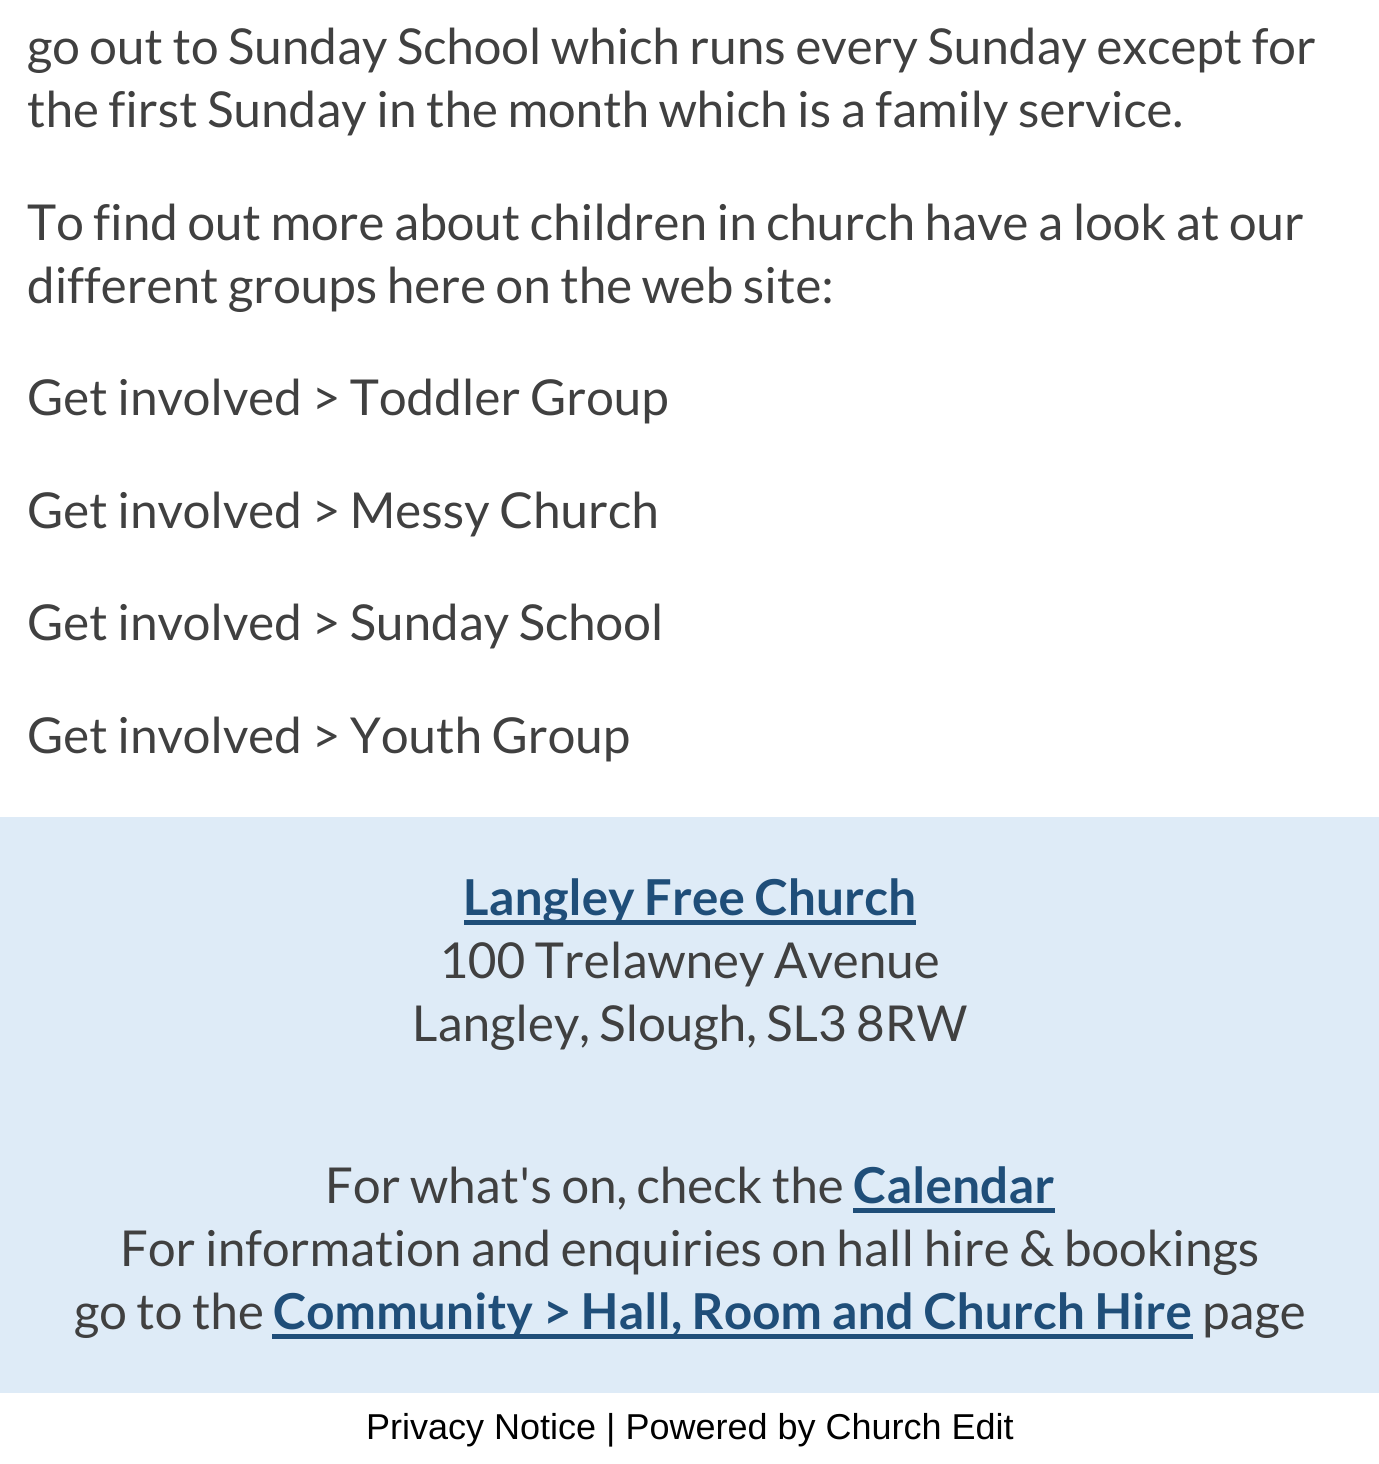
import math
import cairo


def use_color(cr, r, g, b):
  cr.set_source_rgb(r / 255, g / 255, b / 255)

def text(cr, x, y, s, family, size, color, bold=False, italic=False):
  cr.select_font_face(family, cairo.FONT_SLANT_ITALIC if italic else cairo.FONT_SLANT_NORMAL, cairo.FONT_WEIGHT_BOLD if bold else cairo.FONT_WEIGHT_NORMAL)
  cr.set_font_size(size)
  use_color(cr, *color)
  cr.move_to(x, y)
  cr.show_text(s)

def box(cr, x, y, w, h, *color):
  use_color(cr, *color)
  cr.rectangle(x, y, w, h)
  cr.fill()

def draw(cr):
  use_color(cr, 255, 255, 255)
  cr.paint()
  box(cr, 0, 817, 1379, 576, 222, 235, 247)
  box(cr, 464, 920, 452, 5, 31, 78, 121)
  box(cr, 853, 1208, 202, 5, 31, 78, 121)
  box(cr, 272, 1334, 921, 5, 31, 78, 121)
  text(cr, 27, 64, "go out to Sunday School which runs every Sunday except for", "Lato", 49.5, (64, 64, 64))
  text(cr, 27, 127, "the first Sunday in the month which is a family service.", "Lato", 49.5, (64, 64, 64))
  text(cr, 27, 240, "To find out more about children in church have a look at our", "Lato", 49.5, (64, 64, 64))
  text(cr, 27, 303, "different groups here on the web site:", "Lato", 49.5, (64, 64, 64))
  text(cr, 27, 415, "Get involved > Toddler Group", "Lato", 49.5, (64, 64, 64))
  text(cr, 27, 528, "Get involved > Messy Church", "Lato", 49.5, (64, 64, 64))
  text(cr, 27, 640, "Get involved > Sunday School", "Lato", 49.5, (64, 64, 64))
  text(cr, 27, 753, "Get involved > Youth Group", "Lato", 49.5, (64, 64, 64))
  text(cr, 463, 915, "Langley Free Church", "Lato", 49.5, (31, 78, 121), bold=True)
  text(cr, 439, 978, "100 Trelawney Avenue", "Lato", 49.5, (64, 64, 64))
  text(cr, 412, 1041, "Langley, Slough, SL3 8RW", "Lato", 49.5, (64, 64, 64))
  text(cr, 325, 1203, "For what's on, check the", "Lato", 49.5, (64, 64, 64))
  text(cr, 853, 1203, "Calendar", "Lato", 49.5, (31, 78, 121), bold=True)
  text(cr, 120, 1266, "For information and enquiries on hall hire & bookings", "Lato", 49.5, (64, 64, 64))
  text(cr, 74, 1329, "go to the", "Lato", 49.5, (64, 64, 64))
  text(cr, 273, 1329, "Community > Hall, Room and Church Hire", "Lato", 49.5, (31, 78, 121), bold=True)
  text(cr, 1202, 1329, "page", "Lato", 49.5, (64, 64, 64))
  text(cr, 366, 1439, "Privacy Notice | Powered by Church Edit", "Liberation Sans", 36, (0, 0, 0))


surface = cairo.ImageSurface(cairo.FORMAT_RGB24, 1379, 1464)
cr = cairo.Context(surface)
options = cairo.FontOptions()
options.set_hint_metrics(cairo.HINT_METRICS_OFF)
options.set_hint_style(cairo.HINT_STYLE_NONE)
cr.set_font_options(options)
cr.set_miter_limit(4)
draw(cr)
surface.write_to_png("out.png")
